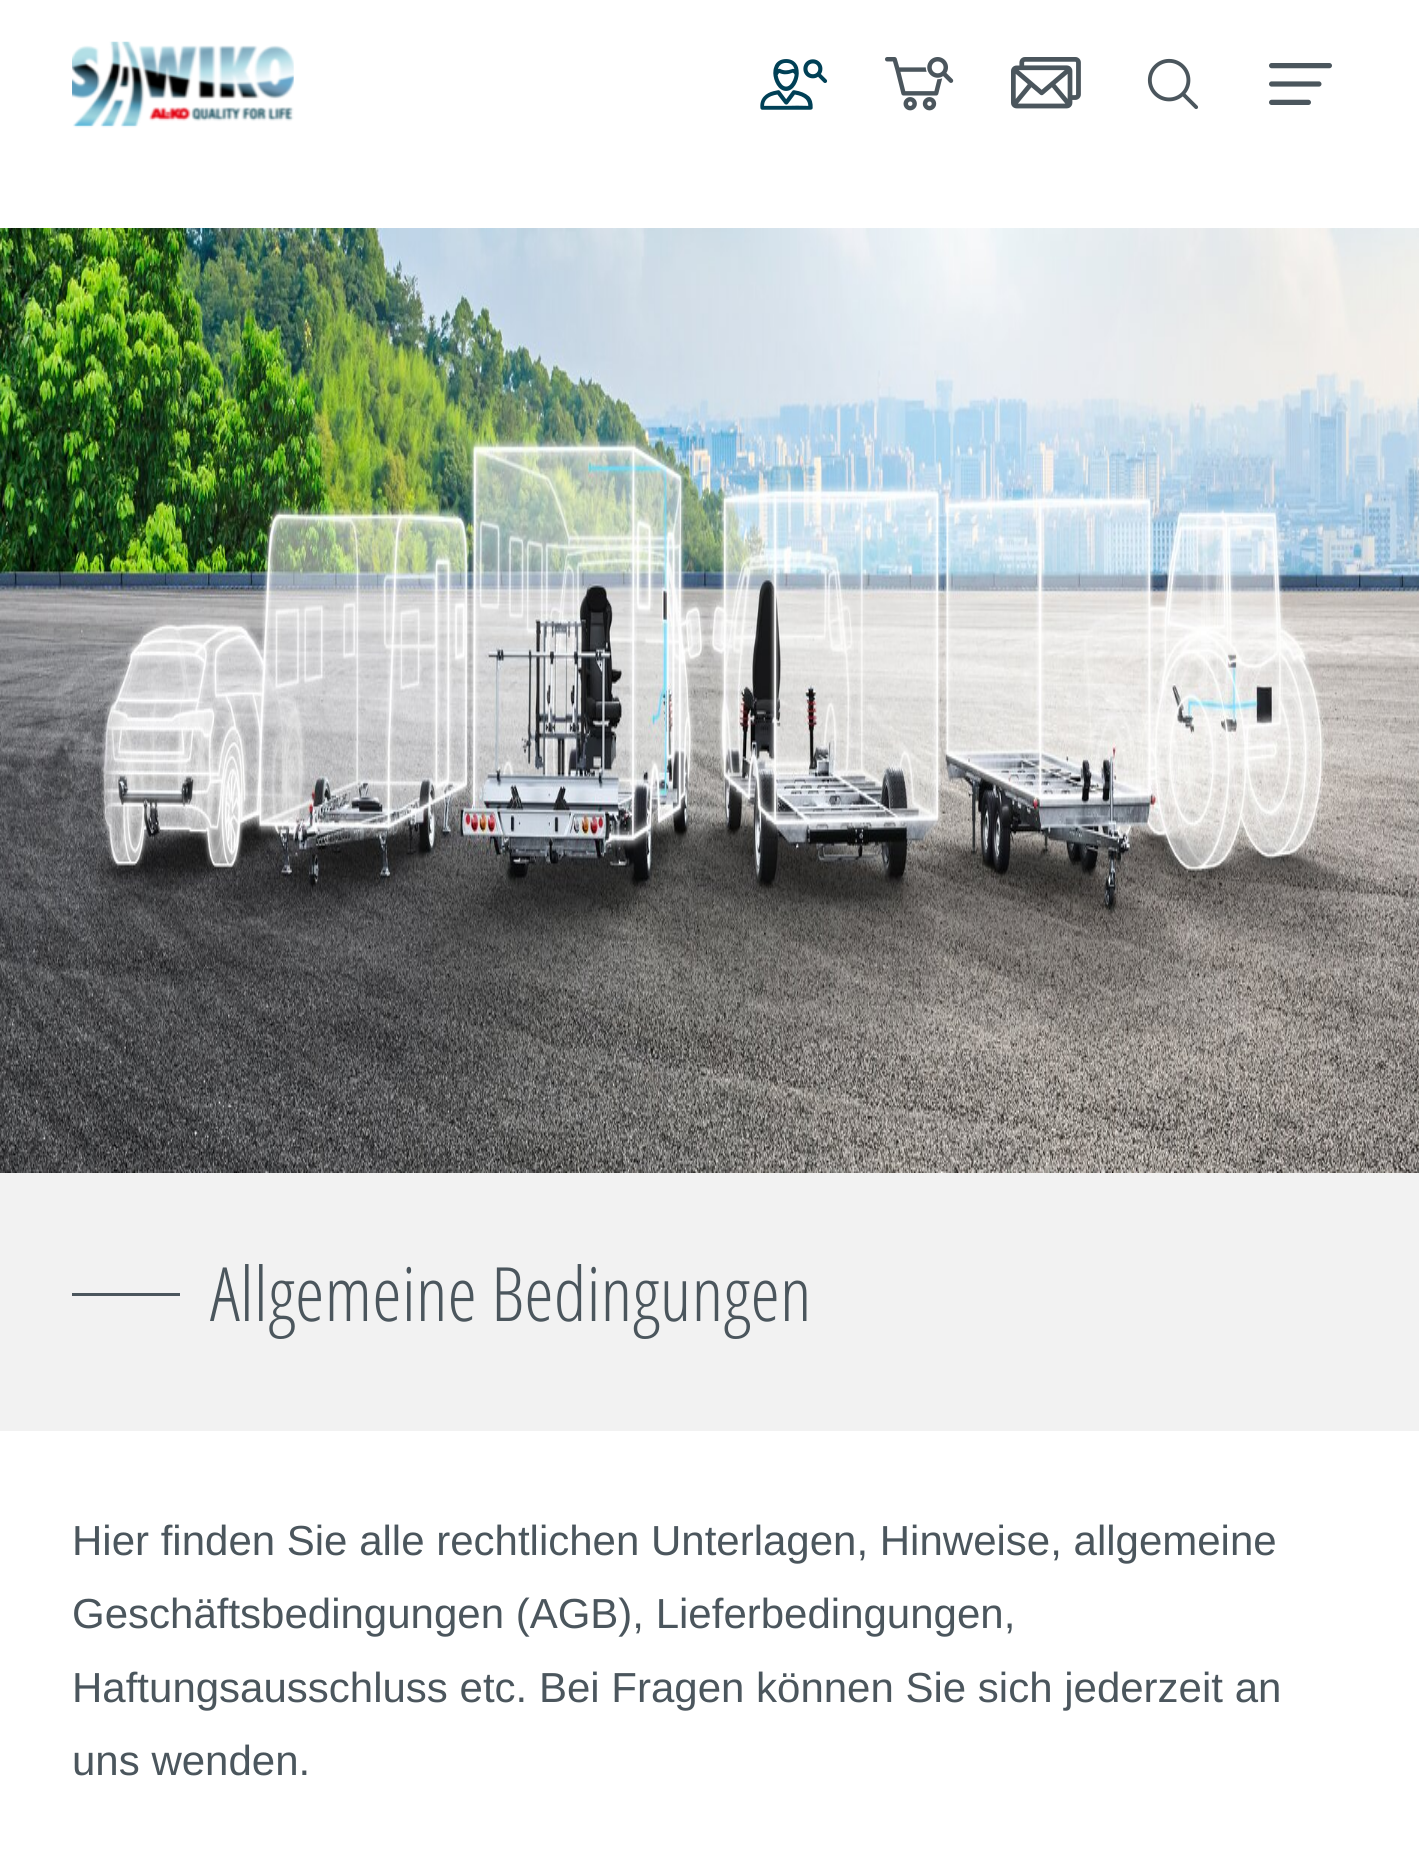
import math
import cairo


def use_color(cr, r, g, b):
  cr.set_source_rgb(r / 255, g / 255, b / 255)

def text(cr, x, y, s, family, size, color, bold=False, italic=False):
  cr.select_font_face(family, cairo.FONT_SLANT_ITALIC if italic else cairo.FONT_SLANT_NORMAL, cairo.FONT_WEIGHT_BOLD if bold else cairo.FONT_WEIGHT_NORMAL)
  cr.set_font_size(size)
  use_color(cr, *color)
  cr.move_to(x, y)
  cr.show_text(s)

def box(cr, x, y, w, h, *color):
  use_color(cr, *color)
  cr.rectangle(x, y, w, h)
  cr.fill()

def picture(cr, path, x, y, w, h):
  cr.save()
  cr.set_source_surface(cairo.ImageSurface.create_from_png(path), x, y)
  cr.rectangle(x, y, w, h)
  cr.fill()
  cr.restore()

def draw(cr):
  use_color(cr, 255, 255, 255)
  cr.paint()
  picture(cr, "img_01.png", 72, 41, 222, 87)
  picture(cr, "img_02.png", 760, 59, 68, 51)
  picture(cr, "img_03.png", 885, 57, 69, 54)
  picture(cr, "img_04.png", 1011, 57, 70, 52)
  picture(cr, "img_05.png", 1147, 58, 52, 52)
  picture(cr, "img_06.png", 1269, 63, 63, 42)
  picture(cr, "img_07.png", 0, 228, 1419, 945)
  box(cr, 0, 1173, 1419, 258, 242, 242, 242)
  box(cr, 72, 1293, 108, 3, 75, 86, 93)
  text(cr, 210, 1321, "Allgemeine Bedingungen", "Open Sans Condensed Light", 75, (75, 86, 93))
  text(cr, 72, 1555, "Hier finden Sie alle rechtlichen Unterlagen, Hinweise, allgemeine", "Liberation Sans", 42, (75, 86, 93))
  text(cr, 72, 1628, "Geschäftsbedingungen (AGB), Lieferbedingungen,", "Liberation Sans", 42, (75, 86, 93))
  text(cr, 72, 1702, "Haftungsausschluss etc. Bei Fragen können Sie sich jederzeit an", "Liberation Sans", 42, (75, 86, 93))
  text(cr, 72, 1775, "uns wenden.", "Liberation Sans", 42, (75, 86, 93))


surface = cairo.ImageSurface(cairo.FORMAT_RGB24, 1419, 1853)
cr = cairo.Context(surface)
options = cairo.FontOptions()
options.set_hint_metrics(cairo.HINT_METRICS_OFF)
options.set_hint_style(cairo.HINT_STYLE_NONE)
cr.set_font_options(options)
cr.set_miter_limit(4)
draw(cr)
surface.write_to_png("out.png")
